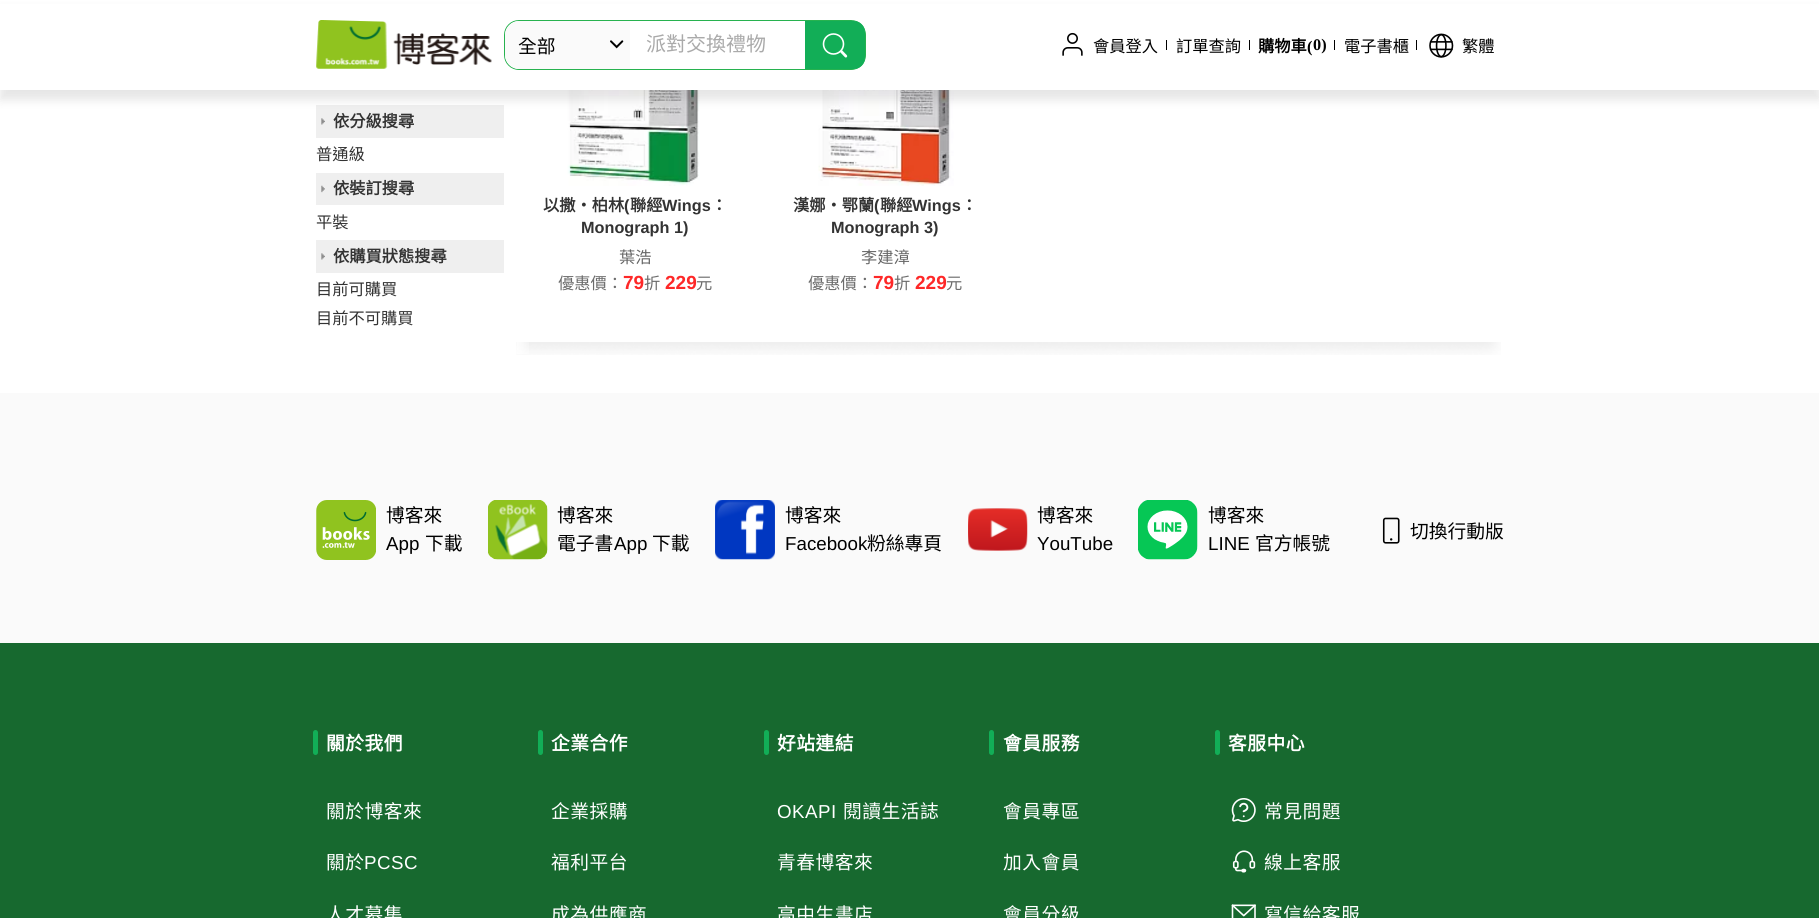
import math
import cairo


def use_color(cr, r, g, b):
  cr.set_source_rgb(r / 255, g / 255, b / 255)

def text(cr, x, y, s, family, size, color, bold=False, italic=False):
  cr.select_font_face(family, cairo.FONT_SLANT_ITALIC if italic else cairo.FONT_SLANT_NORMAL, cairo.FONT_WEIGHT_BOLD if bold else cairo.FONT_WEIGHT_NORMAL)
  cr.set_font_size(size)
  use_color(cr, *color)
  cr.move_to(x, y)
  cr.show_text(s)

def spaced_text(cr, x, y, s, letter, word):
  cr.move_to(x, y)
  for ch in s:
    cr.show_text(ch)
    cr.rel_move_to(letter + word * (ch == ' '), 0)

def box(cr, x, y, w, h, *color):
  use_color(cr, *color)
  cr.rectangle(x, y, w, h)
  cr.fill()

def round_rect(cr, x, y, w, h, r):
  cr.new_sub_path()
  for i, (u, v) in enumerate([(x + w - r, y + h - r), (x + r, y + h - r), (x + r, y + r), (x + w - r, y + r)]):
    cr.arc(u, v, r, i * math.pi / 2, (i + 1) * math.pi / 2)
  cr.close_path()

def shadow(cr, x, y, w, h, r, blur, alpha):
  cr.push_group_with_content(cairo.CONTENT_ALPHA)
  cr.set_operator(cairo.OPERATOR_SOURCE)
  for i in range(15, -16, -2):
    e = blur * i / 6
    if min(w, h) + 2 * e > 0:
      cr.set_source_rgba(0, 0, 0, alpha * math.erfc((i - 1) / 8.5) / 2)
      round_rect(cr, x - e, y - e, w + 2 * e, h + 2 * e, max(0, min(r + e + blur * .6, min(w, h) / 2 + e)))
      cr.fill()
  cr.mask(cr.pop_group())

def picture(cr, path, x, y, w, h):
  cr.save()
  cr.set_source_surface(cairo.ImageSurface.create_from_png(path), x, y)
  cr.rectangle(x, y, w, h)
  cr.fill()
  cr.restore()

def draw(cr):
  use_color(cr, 255, 255, 255)
  cr.paint()
  box(cr, 316, 105, 188, 33, 239, 239, 239)
  picture(cr, "img_08.png", 567, 90, 133, 96)
  picture(cr, "img_09.png", 818, 90, 136, 96)
  use_color(cr, 0, 0, 0)
  shadow(cr, 0, 10, 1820, 90, 0, 5, 0.1)
  box(cr, 0, 4, 1819, 86, 255, 255, 255)
  picture(cr, "img_01.png", 316, 20, 176, 49)
  round_rect(cr, 504.5, 20.5, 361, 49, 14.5)
  use_color(cr, 39, 178, 79)
  cr.set_line_width(1)
  cr.stroke()
  use_color(cr, 250, 250, 250)
  cr.new_path()
  cr.move_to(519, 21)
  cr.line_to(630, 21)
  cr.line_to(630, 69)
  cr.line_to(519, 69)
  cr.curve_to(511.5, 69, 505, 62.5, 505, 55)
  cr.line_to(505, 35)
  cr.curve_to(505, 27.5, 511.5, 21, 519, 21)
  cr.close_path()
  cr.fill()
  picture(cr, "img_02.png", 610, 40, 14, 9)
  use_color(cr, 18, 174, 87)
  cr.new_path()
  cr.move_to(805, 21)
  cr.line_to(854, 21)
  cr.curve_to(860, 21, 865, 26, 865, 32)
  cr.line_to(865, 58)
  cr.curve_to(865, 64, 860, 69, 854, 69)
  cr.line_to(805, 69)
  cr.close_path()
  cr.fill()
  picture(cr, "img_03.png", 822, 33, 26, 25)
  picture(cr, "img_04.png", 1062, 32, 21, 24)
  box(cr, 1166, 40, 1, 10, 0, 0, 0)
  box(cr, 1249, 40, 1, 10, 0, 0, 0)
  box(cr, 1334, 40, 1, 10, 0, 0, 0)
  box(cr, 1416, 40, 1, 10, 0, 0, 0)
  picture(cr, "img_05.png", 1429, 33, 25, 25)
  picture(cr, "img_06.png", 321, 118, 4, 7)
  box(cr, 316, 173, 188, 32, 239, 239, 239)
  picture(cr, "img_07.png", 321, 185, 4, 8)
  box(cr, 316, 240, 188, 33, 239, 239, 239)
  picture(cr, "img_06.png", 321, 253, 4, 7)
  picture(cr, "img_10.png", 516, 342, 985, 13)
  picture(cr, "img_11.png", 516, 342, 13, 12)
  box(cr, 0, 393, 1819, 250, 250, 250, 250)
  picture(cr, "img_12.png", 316, 500, 60, 60)
  picture(cr, "img_13.png", 488, 500, 60, 60)
  picture(cr, "img_14.png", 715, 500, 60, 60)
  picture(cr, "img_15.png", 968, 508, 60, 43)
  picture(cr, "img_16.png", 1138, 500, 60, 60)
  picture(cr, "img_17.png", 1382, 517, 18, 27)
  box(cr, 0, 643, 1819, 275, 23, 105, 47)
  use_color(cr, 18, 174, 87)
  round_rect(cr, 313, 730, 5, 25, 2.5)
  cr.fill()
  round_rect(cr, 538, 730, 5, 25, 2.5)
  cr.fill()
  round_rect(cr, 764, 730, 5, 25, 2.5)
  cr.fill()
  round_rect(cr, 989, 730, 5, 25, 2.5)
  cr.fill()
  round_rect(cr, 1215, 730, 5, 25, 2.5)
  cr.fill()
  picture(cr, "img_18.png", 1231, 798, 25, 24)
  picture(cr, "img_19.png", 1232, 850, 24, 23)
  picture(cr, "img_20.png", 1231, 904, 25, 14)
  text(cr, 518, 53, "全部", "Noto Sans CJK TC", 18.75, (0, 0, 0))
  text(cr, 646, 51, "派對交換禮物", "Noto Sans CJK TC", 20, (170, 170, 170))
  text(cr, 1093, 52, "會員登入", "Noto Sans CJK TC", 16.25, (0, 0, 0))
  text(cr, 1176, 52, "訂單查詢", "Noto Sans CJK TC", 16.25, (0, 0, 0))
  text(cr, 1258, 52, "購物車", "Noto Sans CJK TC", 16.25, (0, 0, 0), bold=True)
  text(cr, 1307, 52, "(", "Liberation Serif", 16.25, (0, 0, 0), bold=True)
  text(cr, 1313, 50, "0)", "Liberation Serif", 16.25, (0, 0, 0), bold=True)
  text(cr, 1344, 52, "電子書櫃", "Noto Sans CJK TC", 16.25, (0, 0, 0))
  text(cr, 1462, 52, "繁體", "Noto Sans CJK TC", 16.25, (0, 0, 0))
  text(cr, 333, 127, "依分級搜尋", "Noto Sans CJK TC", 16.25, (51, 51, 51), bold=True)
  text(cr, 316, 160, "普通級", "Noto Sans CJK TC", 16.25, (51, 51, 51))
  text(cr, 333, 194, "依裝訂搜尋", "Noto Sans CJK TC", 16.25, (51, 51, 51), bold=True)
  text(cr, 316, 228, "平裝", "Noto Sans CJK TC", 16.25, (51, 51, 51))
  text(cr, 333, 262, "依購買狀態搜尋", "Noto Sans CJK TC", 16.25, (51, 51, 51), bold=True)
  text(cr, 316, 295, "目前可購買", "Noto Sans CJK TC", 16.25, (51, 51, 51))
  text(cr, 316, 324, "目前不可購買", "Noto Sans CJK TC", 16.25, (51, 51, 51))
  text(cr, 543, 211, "以撒‧柏林", "Noto Sans CJK TC", 16.25, (51, 51, 51), bold=True)
  text(cr, 624, 211, "(", "Liberation Sans", 16.25, (51, 51, 51), bold=True)
  text(cr, 630, 211, "聯經", "Noto Sans CJK TC", 16.25, (51, 51, 51), bold=True)
  text(cr, 662, 211, "Wings", "Liberation Sans", 16.25, (51, 51, 51), bold=True)
  text(cr, 711, 211, "：", "Noto Sans CJK TC", 16.25, (51, 51, 51), bold=True)
  text(cr, 581, 233, "Monograph 1)", "Liberation Sans", 16.25, (51, 51, 51), bold=True)
  text(cr, 619, 263, "葉浩", "Noto Sans CJK TC", 16.25, (102, 102, 102))
  text(cr, 558, 289, "優惠價：", "Noto Sans CJK TC", 16.25, (108, 108, 108))
  text(cr, 623, 289, "79", "Liberation Sans", 19, (254, 40, 40), bold=True)
  text(cr, 644, 289, "折", "Noto Sans CJK TC", 16.25, (108, 108, 108))
  text(cr, 665, 289, "229", "Liberation Sans", 19, (254, 40, 40), bold=True)
  text(cr, 696, 289, "元", "Noto Sans CJK TC", 16.25, (108, 108, 108))
  text(cr, 793, 211, "漢娜‧鄂蘭", "Noto Sans CJK TC", 16.25, (51, 51, 51), bold=True)
  text(cr, 874, 211, "(", "Liberation Sans", 16.25, (51, 51, 51), bold=True)
  text(cr, 880, 211, "聯經", "Noto Sans CJK TC", 16.25, (51, 51, 51), bold=True)
  text(cr, 912, 211, "Wings", "Liberation Sans", 16.25, (51, 51, 51), bold=True)
  text(cr, 961, 211, "：", "Noto Sans CJK TC", 16.25, (51, 51, 51), bold=True)
  text(cr, 831, 233, "Monograph 3)", "Liberation Sans", 16.25, (51, 51, 51), bold=True)
  text(cr, 861, 263, "李建漳", "Noto Sans CJK TC", 16.25, (102, 102, 102))
  text(cr, 808, 289, "優惠價：", "Noto Sans CJK TC", 16.25, (108, 108, 108))
  text(cr, 873, 289, "79", "Liberation Sans", 19, (254, 40, 40), bold=True)
  text(cr, 894, 289, "折", "Noto Sans CJK TC", 16.25, (108, 108, 108))
  text(cr, 915, 289, "229", "Liberation Sans", 19, (254, 40, 40), bold=True)
  text(cr, 946, 289, "元", "Noto Sans CJK TC", 16.25, (108, 108, 108))
  text(cr, 386, 522, "博客來", "Noto Sans CJK TC", 18.75, (0, 0, 0))
  text(cr, 386, 550, "App", "Liberation Sans", 18.75, (0, 0, 0))
  text(cr, 425, 550, "下載", "Noto Sans CJK TC", 18.75, (0, 0, 0))
  text(cr, 557, 522, "博客來", "Noto Sans CJK TC", 18.75, (0, 0, 0))
  text(cr, 557, 550, "電子書", "Noto Sans CJK TC", 18.75, (0, 0, 0))
  text(cr, 614, 550, "App", "Liberation Sans", 18.75, (0, 0, 0))
  text(cr, 652, 550, "下載", "Noto Sans CJK TC", 18.75, (0, 0, 0))
  text(cr, 785, 522, "博客來", "Noto Sans CJK TC", 18.75, (0, 0, 0))
  text(cr, 785, 550, "Facebook", "Liberation Sans", 18.75, (0, 0, 0))
  text(cr, 867, 550, "粉絲專頁", "Noto Sans CJK TC", 18.75, (0, 0, 0))
  text(cr, 1037, 522, "博客來", "Noto Sans CJK TC", 18.75, (0, 0, 0))
  text(cr, 1037, 550, "YouTube", "Liberation Sans", 18.75, (0, 0, 0))
  text(cr, 1208, 522, "博客來", "Noto Sans CJK TC", 18.75, (0, 0, 0))
  text(cr, 1208, 550, "LINE", "Liberation Sans", 18.75, (0, 0, 0))
  text(cr, 1255, 550, "官方帳號", "Noto Sans CJK TC", 18.75, (0, 0, 0))
  text(cr, 1410, 538, "切換行動版", "Noto Sans CJK TC", 18.75, (0, 0, 0))
  cr.select_font_face("Noto Sans CJK TC", cairo.FONT_SLANT_NORMAL, cairo.FONT_WEIGHT_BOLD)
  use_color(cr, 255, 255, 255)
  spaced_text(cr, 326, 750, "關於我們", 0.5, 0)
  cr.select_font_face("Noto Sans CJK TC")
  spaced_text(cr, 326, 818, "關於博客來", 0.5, 0)
  spaced_text(cr, 326, 869, "關於", 0.5, 0)
  cr.select_font_face("Liberation Sans")
  spaced_text(cr, 364, 869, "PCSC", 0.5, 0)
  cr.select_font_face("Noto Sans CJK TC")
  spaced_text(cr, 326, 921, "人才募集", 0.5, 0)
  cr.select_font_face("Noto Sans CJK TC", cairo.FONT_SLANT_NORMAL, cairo.FONT_WEIGHT_BOLD)
  spaced_text(cr, 551, 750, "企業合作", 0.5, 0)
  cr.select_font_face("Noto Sans CJK TC")
  spaced_text(cr, 551, 818, "企業採購", 0.5, 0)
  spaced_text(cr, 551, 869, "福利平台", 0.5, 0)
  spaced_text(cr, 551, 921, "成為供應商", 0.5, 0)
  cr.select_font_face("Noto Sans CJK TC", cairo.FONT_SLANT_NORMAL, cairo.FONT_WEIGHT_BOLD)
  spaced_text(cr, 777, 750, "好站連結", 0.5, 0)
  cr.select_font_face("Liberation Sans")
  spaced_text(cr, 777, 818, "OKAPI", 0.5, 0)
  cr.select_font_face("Noto Sans CJK TC")
  spaced_text(cr, 843, 818, "閱讀生活誌", 0.5, 0)
  spaced_text(cr, 777, 869, "青春博客來", 0.5, 0)
  spaced_text(cr, 777, 921, "高中生書店", 0.5, 0)
  cr.select_font_face("Noto Sans CJK TC", cairo.FONT_SLANT_NORMAL, cairo.FONT_WEIGHT_BOLD)
  spaced_text(cr, 1003, 750, "會員服務", 0.5, 0)
  cr.select_font_face("Noto Sans CJK TC")
  spaced_text(cr, 1003, 818, "會員專區", 0.5, 0)
  spaced_text(cr, 1003, 869, "加入會員", 0.5, 0)
  spaced_text(cr, 1003, 921, "會員分級", 0.5, 0)
  cr.select_font_face("Noto Sans CJK TC", cairo.FONT_SLANT_NORMAL, cairo.FONT_WEIGHT_BOLD)
  spaced_text(cr, 1228, 750, "客服中心", 0.5, 0)
  cr.select_font_face("Noto Sans CJK TC")
  spaced_text(cr, 1264, 818, "常見問題", 0.5, 0)
  spaced_text(cr, 1264, 869, "線上客服", 0.5, 0)
  spaced_text(cr, 1264, 921, "寫信給客服", 0.5, 0)


surface = cairo.ImageSurface(cairo.FORMAT_RGB24, 1819, 918)
cr = cairo.Context(surface)
options = cairo.FontOptions()
options.set_hint_metrics(cairo.HINT_METRICS_OFF)
options.set_hint_style(cairo.HINT_STYLE_NONE)
cr.set_font_options(options)
cr.set_miter_limit(4)
draw(cr)
surface.write_to_png("out.png")
